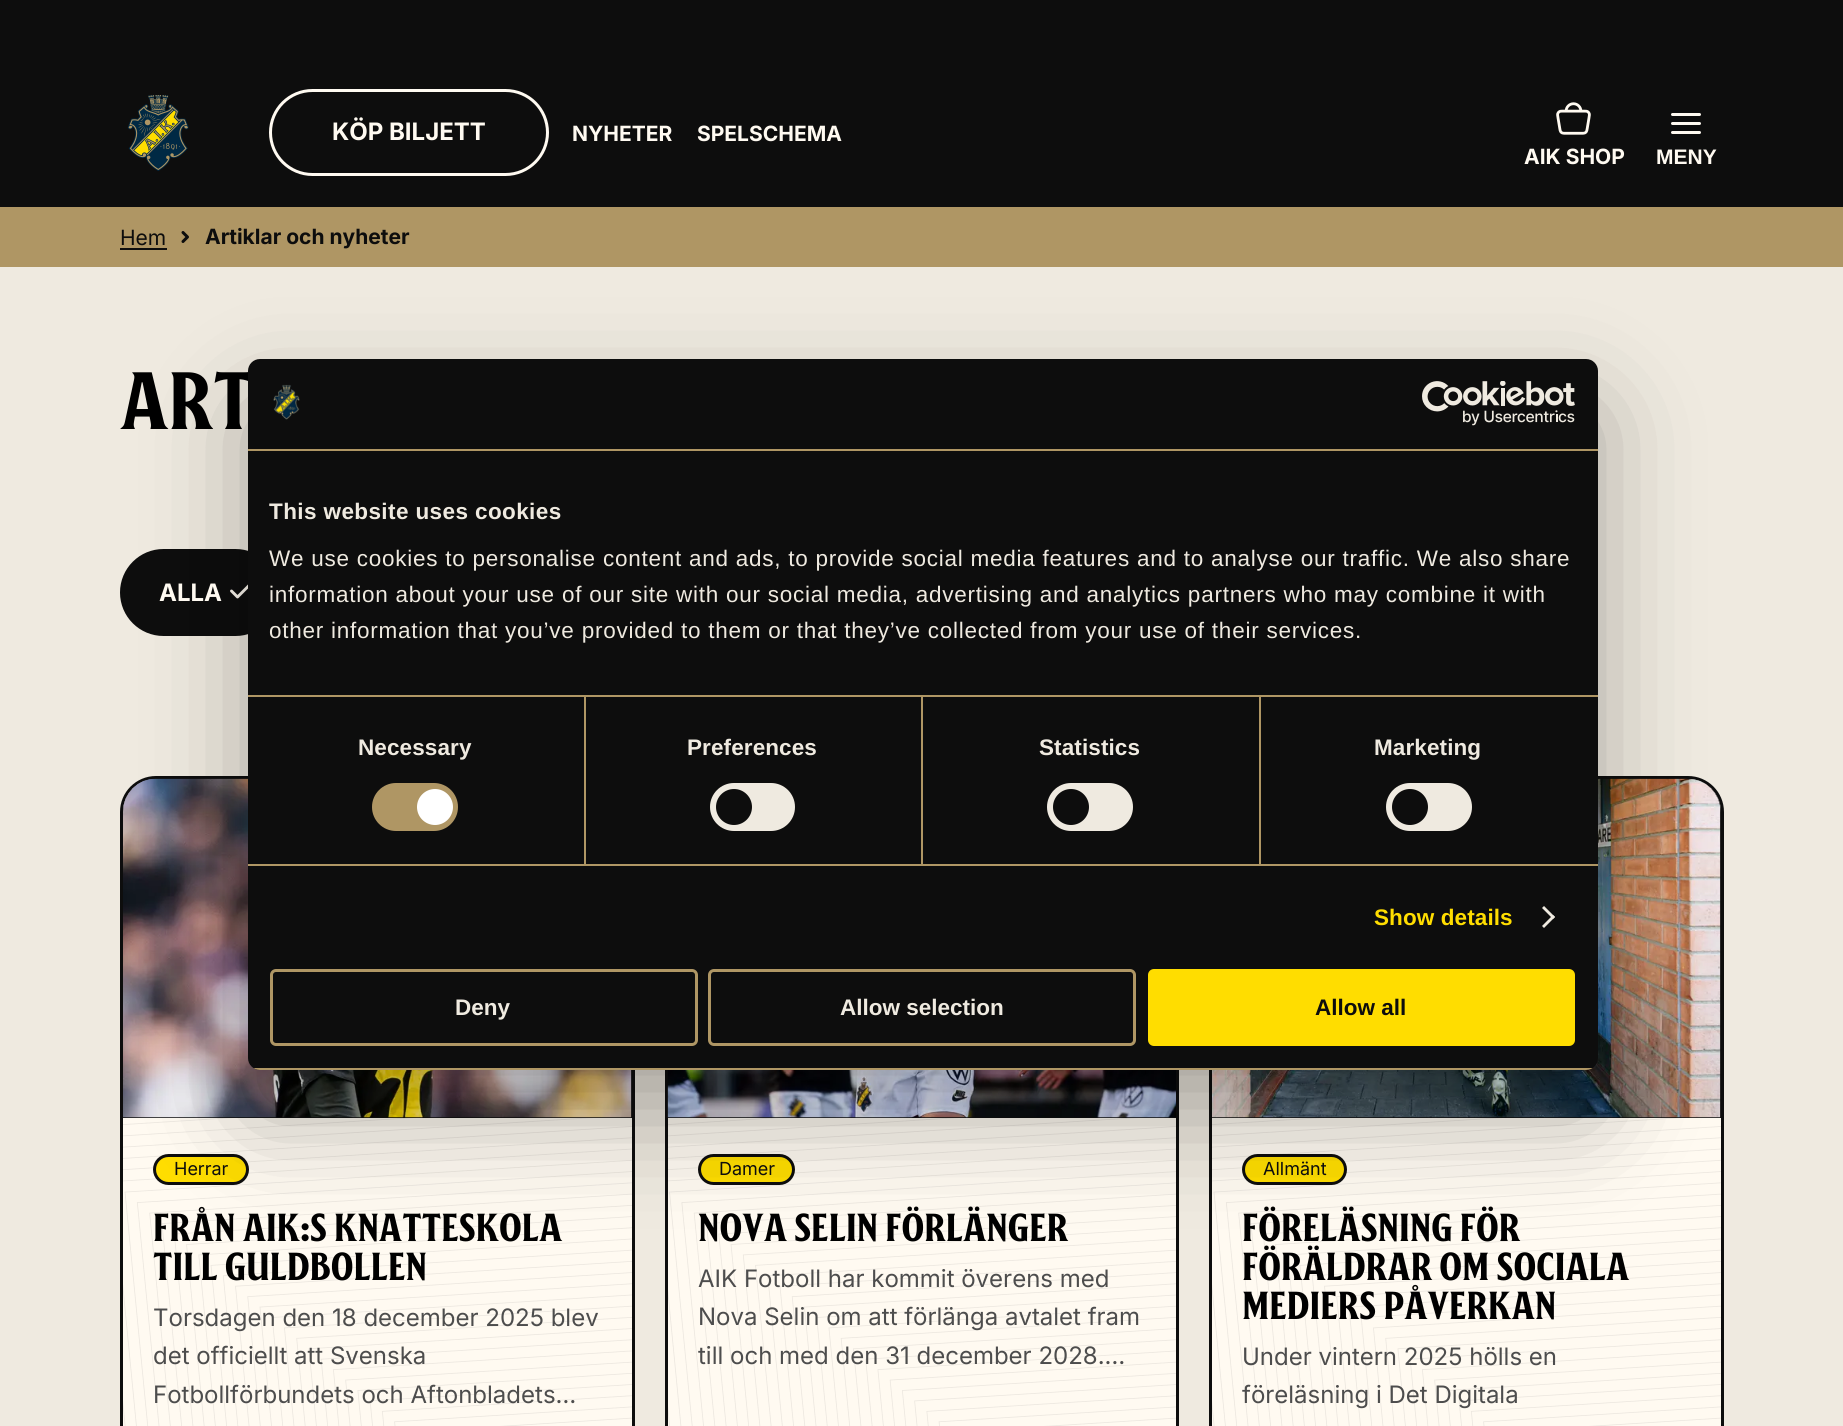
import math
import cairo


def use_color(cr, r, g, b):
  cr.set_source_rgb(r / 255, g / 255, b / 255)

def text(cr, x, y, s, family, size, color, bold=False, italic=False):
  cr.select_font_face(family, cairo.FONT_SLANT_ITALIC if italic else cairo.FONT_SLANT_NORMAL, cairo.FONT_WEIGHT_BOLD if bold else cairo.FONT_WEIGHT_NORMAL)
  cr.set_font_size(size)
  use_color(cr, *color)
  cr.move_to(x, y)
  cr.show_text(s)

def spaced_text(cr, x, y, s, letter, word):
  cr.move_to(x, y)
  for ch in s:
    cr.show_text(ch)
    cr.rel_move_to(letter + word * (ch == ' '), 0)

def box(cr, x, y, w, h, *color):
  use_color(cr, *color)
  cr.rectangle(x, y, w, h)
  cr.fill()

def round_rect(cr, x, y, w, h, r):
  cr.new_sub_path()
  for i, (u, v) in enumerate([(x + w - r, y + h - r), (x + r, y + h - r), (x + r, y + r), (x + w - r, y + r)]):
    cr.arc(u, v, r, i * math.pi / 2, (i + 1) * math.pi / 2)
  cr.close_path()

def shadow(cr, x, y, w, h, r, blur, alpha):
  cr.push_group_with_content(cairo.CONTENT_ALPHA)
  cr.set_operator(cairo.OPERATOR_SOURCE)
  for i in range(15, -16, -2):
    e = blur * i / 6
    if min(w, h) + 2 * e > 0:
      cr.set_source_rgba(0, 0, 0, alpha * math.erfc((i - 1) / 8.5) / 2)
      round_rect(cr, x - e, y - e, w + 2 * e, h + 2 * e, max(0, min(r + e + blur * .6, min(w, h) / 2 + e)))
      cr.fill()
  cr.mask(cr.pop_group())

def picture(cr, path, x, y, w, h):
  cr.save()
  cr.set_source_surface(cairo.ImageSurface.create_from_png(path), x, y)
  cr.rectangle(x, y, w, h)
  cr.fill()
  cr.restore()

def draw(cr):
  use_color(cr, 239, 234, 224)
  cr.paint()
  box(cr, 0, 0, 1843, 207, 13, 13, 13)
  picture(cr, "img_01.png", 127, 95, 62, 76)
  round_rect(cr, 270.5, 90.5, 277, 84, 42)
  use_color(cr, 255, 250, 241)
  cr.set_line_width(3)
  cr.stroke()
  picture(cr, "img_02.png", 1556, 102, 35, 33)
  round_rect(cr, 1671, 113, 30, 3, 1.5)
  cr.fill()
  round_rect(cr, 1671, 122, 30, 3, 1.5)
  cr.fill()
  round_rect(cr, 1671, 131, 30, 3, 1.5)
  cr.fill()
  box(cr, 0, 207, 1843, 60, 175, 150, 100)
  box(cr, 120, 248, 47, 2, 13, 13, 13)
  cr.new_path()
  cr.move_to(183, 232.5)
  cr.line_to(187.5, 237)
  cr.line_to(183, 241.5)
  cr.set_line_cap(cairo.LINE_CAP_ROUND)
  cr.set_line_join(cairo.LINE_JOIN_ROUND)
  cr.stroke()
  round_rect(cr, 121.5, 550.5, 156, 84, 42)
  cr.fill_preserve()
  cr.set_line_cap(cairo.LINE_CAP_BUTT)
  cr.set_line_join(cairo.LINE_JOIN_MITER)
  cr.stroke()
  cr.new_path()
  cr.move_to(231.5, 591)
  cr.line_to(237.5, 597)
  cr.line_to(249.5, 585)
  use_color(cr, 255, 250, 241)
  cr.set_line_width(2.9)
  cr.set_line_cap(cairo.LINE_CAP_ROUND)
  cr.set_line_join(cairo.LINE_JOIN_ROUND)
  cr.stroke()
  round_rect(cr, 121.5, 777.5, 512, 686, 34.5)
  cr.fill_preserve()
  use_color(cr, 13, 13, 13)
  cr.set_line_width(3)
  cr.set_line_cap(cairo.LINE_CAP_BUTT)
  cr.set_line_join(cairo.LINE_JOIN_MITER)
  cr.stroke()
  cr.new_path()
  cr.move_to(156, 779)
  cr.line_to(599, 779)
  cr.curve_to(617, 779, 632, 794, 632, 812)
  cr.line_to(632, 1118)
  cr.line_to(123, 1118)
  cr.line_to(123, 812)
  cr.curve_to(123, 794, 138, 779, 156, 779)
  cr.close_path()
  cr.fill()
  picture(cr, "img_03.png", 123, 778, 509, 340)
  picture(cr, "img_04.png", 123, 1118, 509, 308)
  use_color(cr, 255, 221, 0)
  round_rect(cr, 154.5, 1155.5, 93, 28, 14)
  cr.fill_preserve()
  use_color(cr, 13, 13, 13)
  cr.stroke()
  box(cr, 668, 1118, 508, 308, 255, 250, 241)
  cr.rectangle(666.5, 777.5, 511, 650)
  use_color(cr, 13, 13, 13)
  cr.stroke()
  box(cr, 668, 1117, 508, 1, 13, 13, 13)
  picture(cr, "img_05.png", 667, 1070, 509, 48)
  picture(cr, "img_06.png", 668, 1118, 508, 308)
  use_color(cr, 255, 221, 0)
  round_rect(cr, 699.5, 1155.5, 94, 28, 14)
  cr.fill_preserve()
  use_color(cr, 13, 13, 13)
  cr.stroke()
  use_color(cr, 255, 250, 241)
  round_rect(cr, 1210.5, 777.5, 512, 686, 34.5)
  cr.fill_preserve()
  use_color(cr, 13, 13, 13)
  cr.stroke()
  cr.new_path()
  cr.move_to(1245, 779)
  cr.line_to(1688, 779)
  cr.curve_to(1706, 779, 1721, 794, 1721, 812)
  cr.line_to(1721, 1118)
  cr.line_to(1212, 1118)
  cr.line_to(1212, 812)
  cr.curve_to(1212, 794, 1227, 779, 1245, 779)
  cr.close_path()
  cr.fill()
  picture(cr, "img_07.png", 1212, 778, 509, 340)
  picture(cr, "img_04.png", 1212, 1118, 509, 308)
  use_color(cr, 255, 221, 0)
  round_rect(cr, 1243.5, 1155.5, 102, 28, 14)
  cr.fill_preserve()
  use_color(cr, 13, 13, 13)
  cr.stroke()
  use_color(cr, 0, 0, 0)
  shadow(cr, 248, 407, 1350, 711, 12, 51, 0.3)
  text(cr, 332, 140, "KÖP BILJETT", "Inter", 24, (255, 250, 241), bold=True)
  text(cr, 572, 141, "NYHETER", "Inter", 21, (255, 250, 241), bold=True)
  text(cr, 697, 141, "SPELSCHEMA", "Inter", 21, (255, 250, 241), bold=True)
  text(cr, 1524, 164, "AIK SHOP", "Inter", 21, (255, 250, 241), bold=True)
  text(cr, 1656, 164, "MENY", "Liberation Sans", 21, (255, 250, 241), bold=True)
  text(cr, 120, 245, "Hem", "Inter", 21, (13, 13, 13))
  text(cr, 205, 244, "Artiklar och nyheter", "Inter", 21, (13, 13, 13), bold=True)
  text(cr, 120, 429, "ART", "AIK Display", 81, (0, 0, 0), bold=True)
  text(cr, 159, 601, "ALLA", "Inter", 24, (255, 250, 241), bold=True)
  text(cr, 174, 1175, "Herrar", "Inter", 18, (13, 13, 13))
  text(cr, 153, 1241, "FRÅN AIK:S KNATTESKOLA", "AIK Display", 39, (0, 0, 0), bold=True)
  text(cr, 153, 1280, "TILL GULDBOLLEN", "AIK Display", 39, (0, 0, 0), bold=True)
  text(cr, 153, 1326, "Torsdagen den 18 december 2025 blev", "Inter", 24, (77, 77, 77))
  text(cr, 153, 1364, "det officiellt att Svenska", "Inter", 24, (77, 77, 77))
  text(cr, 153, 1403, "Fotbollförbundets och Aftonbladets…", "Inter", 24, (77, 77, 77))
  text(cr, 719, 1175, "Damer", "Inter", 18, (13, 13, 13))
  text(cr, 698, 1241, "NOVA SELIN FÖRLÄNGER", "AIK Display", 39, (0, 0, 0), bold=True)
  text(cr, 698, 1287, "AIK Fotboll har kommit överens med", "Inter", 24, (77, 77, 77))
  text(cr, 698, 1325, "Nova Selin om att förlänga avtalet fram", "Inter", 24, (77, 77, 77))
  text(cr, 698, 1364, "till och med den 31 december 2028.…", "Inter", 24, (77, 77, 77))
  text(cr, 1263, 1175, "Allmänt", "Inter", 18, (13, 13, 13))
  text(cr, 1242, 1241, "FÖRELÄSNING FÖR", "AIK Display", 39, (0, 0, 0), bold=True)
  text(cr, 1242, 1280, "FÖRÄLDRAR OM SOCIALA", "AIK Display", 39, (0, 0, 0), bold=True)
  text(cr, 1242, 1319, "MEDIERS PÅVERKAN", "AIK Display", 39, (0, 0, 0), bold=True)
  text(cr, 1242, 1365, "Under vintern 2025 hölls en", "Inter", 24, (77, 77, 77))
  text(cr, 1242, 1403, "föreläsning i Det Digitala", "Inter", 24, (77, 77, 77))
  use_color(cr, 13, 13, 13)
  round_rect(cr, 248, 359, 1350, 711, 12)
  cr.fill()
  box(cr, 248, 449, 1350, 2, 175, 150, 100)
  picture(cr, "img_08.png", 273, 384, 27, 36)
  picture(cr, "img_09.png", 1422, 381, 153, 45)
  cr.select_font_face("Liberation Sans", cairo.FONT_SLANT_NORMAL, cairo.FONT_WEIGHT_BOLD)
  cr.set_font_size(22.5)
  use_color(cr, 239, 234, 224)
  spaced_text(cr, 269, 519, "This website uses cookies", 0.4, 0)
  cr.select_font_face("Liberation Sans")
  spaced_text(cr, 269, 566, "We use cookies to personalise content and ads, to provide social media features and to analyse our traffic. We also share", 0.75, 0)
  spaced_text(cr, 269, 602, "information about your use of our site with our social media, advertising and analytics partners who may combine it with", 0.75, 0)
  spaced_text(cr, 269, 638, "other information that you’ve provided to them or that they’ve collected from your use of their services.", 0.75, 0)
  box(cr, 248, 864, 1350, 2, 175, 150, 100)
  box(cr, 584, 696, 2, 168, 175, 150, 100)
  cr.select_font_face("Liberation Sans", cairo.FONT_SLANT_NORMAL, cairo.FONT_WEIGHT_BOLD)
  use_color(cr, 239, 234, 224)
  spaced_text(cr, 358, 755, "Necessary", 0.1, 0)
  use_color(cr, 175, 150, 100)
  round_rect(cr, 372, 783, 86, 48, 24)
  cr.fill()
  use_color(cr, 255, 255, 255)
  cr.arc(435, 807, 18, 0, 2 * math.pi)
  cr.fill()
  box(cr, 921, 696, 2, 168, 175, 150, 100)
  use_color(cr, 239, 234, 224)
  spaced_text(cr, 687, 755, "Preferences", 0.1, 0)
  round_rect(cr, 710, 783, 85, 48, 24)
  cr.fill()
  use_color(cr, 13, 13, 13)
  cr.arc(734, 807, 18, 0, 2 * math.pi)
  cr.fill()
  box(cr, 1259, 696, 2, 168, 175, 150, 100)
  box(cr, 248, 695, 1350, 2, 175, 150, 100)
  use_color(cr, 239, 234, 224)
  spaced_text(cr, 1039, 755, "Statistics", 0.1, 0)
  round_rect(cr, 1047, 783, 86, 48, 24)
  cr.fill()
  use_color(cr, 13, 13, 13)
  cr.arc(1071, 807, 18, 0, 2 * math.pi)
  cr.fill()
  use_color(cr, 239, 234, 224)
  spaced_text(cr, 1374, 755, "Marketing", 0.1, 0)
  round_rect(cr, 1386, 783, 86, 48, 24)
  cr.fill()
  use_color(cr, 13, 13, 13)
  cr.arc(1410, 807, 18, 0, 2 * math.pi)
  cr.fill()
  use_color(cr, 255, 221, 0)
  spaced_text(cr, 1374, 925, "Show details", 0.1, 0)
  use_color(cr, 239, 234, 224)
  cr.new_path()
  cr.move_to(1544, 906)
  cr.line_to(1555, 917)
  cr.line_to(1553, 919)
  cr.line_to(1542, 908)
  cr.close_path()
  cr.fill()
  cr.new_path()
  cr.move_to(1553, 915)
  cr.line_to(1555, 917)
  cr.line_to(1544, 928)
  cr.line_to(1542, 926)
  cr.close_path()
  cr.fill()
  cr.save()
  round_rect(cr, 248, 359, 1350, 711, 12)
  cr.clip()
  box(cr, 248, 1068, 1350, 2, 175, 150, 100)
  cr.restore()
  round_rect(cr, 271.5, 970.5, 425, 74, 4.5)
  use_color(cr, 175, 150, 100)
  cr.stroke()
  text(cr, 455, 1015, "Deny", "Liberation Sans", 22.5, (239, 234, 224), bold=True)
  round_rect(cr, 709.5, 970.5, 425, 74, 4.5)
  use_color(cr, 175, 150, 100)
  cr.stroke()
  text(cr, 840, 1015, "Allow selection", "Liberation Sans", 22.5, (239, 234, 224), bold=True)
  use_color(cr, 255, 221, 0)
  round_rect(cr, 1149.5, 970.5, 424, 74, 4.5)
  cr.fill_preserve()
  cr.stroke()
  text(cr, 1315, 1015, "Allow all", "Liberation Sans", 22.5, (13, 13, 13), bold=True)


surface = cairo.ImageSurface(cairo.FORMAT_RGB24, 1843, 1426)
cr = cairo.Context(surface)
options = cairo.FontOptions()
options.set_hint_metrics(cairo.HINT_METRICS_OFF)
options.set_hint_style(cairo.HINT_STYLE_NONE)
cr.set_font_options(options)
cr.set_miter_limit(4)
draw(cr)
surface.write_to_png("out.png")
